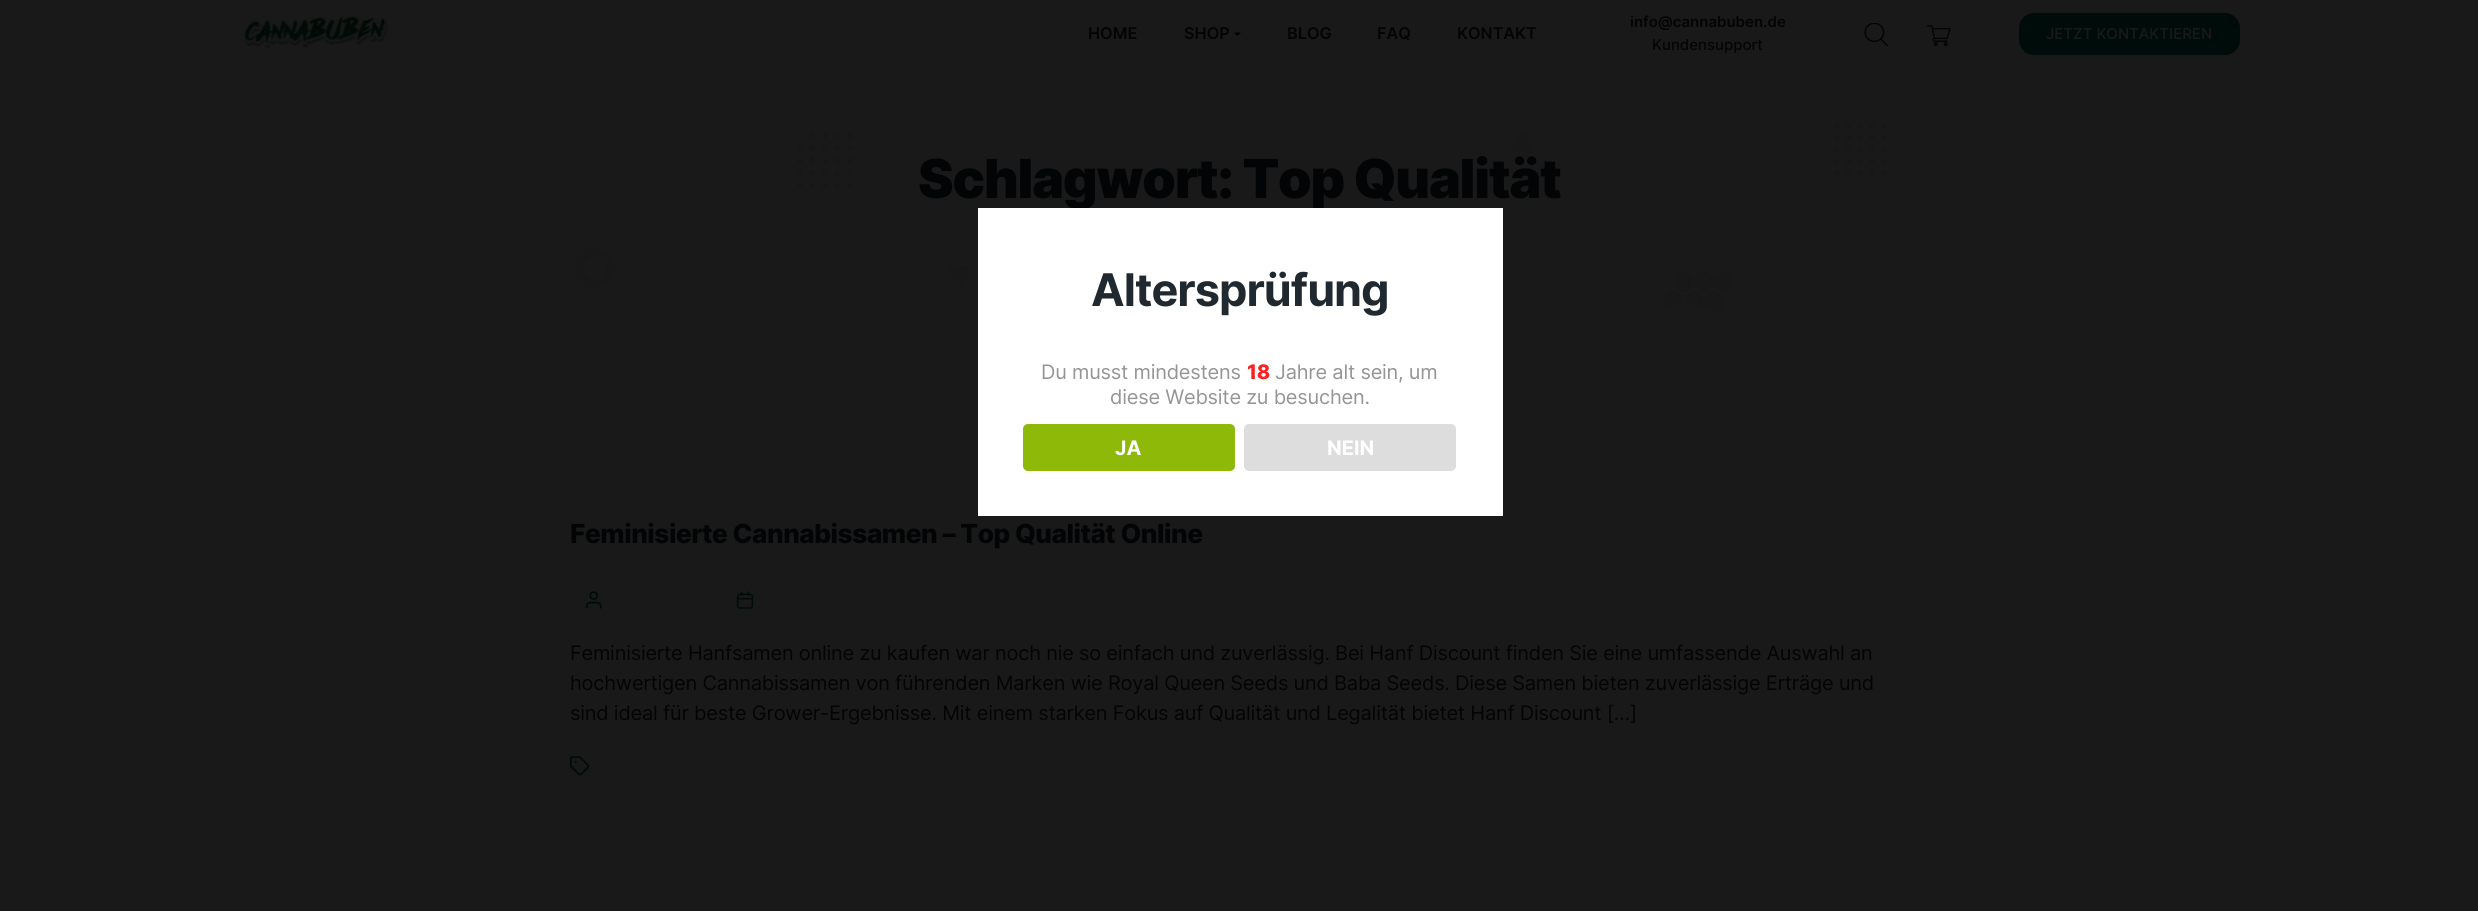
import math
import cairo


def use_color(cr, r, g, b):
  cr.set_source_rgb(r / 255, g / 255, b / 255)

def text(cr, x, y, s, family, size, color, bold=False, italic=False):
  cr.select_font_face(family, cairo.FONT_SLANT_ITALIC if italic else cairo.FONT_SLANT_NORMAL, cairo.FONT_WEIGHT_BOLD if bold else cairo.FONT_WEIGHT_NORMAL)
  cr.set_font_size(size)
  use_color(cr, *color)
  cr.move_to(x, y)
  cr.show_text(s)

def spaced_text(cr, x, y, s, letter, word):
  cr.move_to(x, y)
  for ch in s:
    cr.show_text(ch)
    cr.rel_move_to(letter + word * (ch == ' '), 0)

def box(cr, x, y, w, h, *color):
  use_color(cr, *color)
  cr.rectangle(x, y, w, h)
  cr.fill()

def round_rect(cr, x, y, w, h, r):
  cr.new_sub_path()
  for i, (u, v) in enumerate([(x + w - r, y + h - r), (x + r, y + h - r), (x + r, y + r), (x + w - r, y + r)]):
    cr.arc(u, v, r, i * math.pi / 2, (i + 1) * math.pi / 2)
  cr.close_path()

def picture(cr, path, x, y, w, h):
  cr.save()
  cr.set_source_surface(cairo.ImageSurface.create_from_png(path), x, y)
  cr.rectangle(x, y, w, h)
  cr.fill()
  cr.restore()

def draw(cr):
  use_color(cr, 25, 25, 25)
  cr.paint()
  picture(cr, "img_01.png", 243, 15, 146, 34)
  use_color(cr, 3, 3, 3)
  cr.new_path()
  cr.move_to(1234, 32.5)
  cr.line_to(1241, 32.5)
  cr.line_to(1237.5, 36)
  cr.close_path()
  cr.fill()
  picture(cr, "img_02.png", 1864, 23, 25, 23)
  picture(cr, "img_03.png", 1926, 25, 25, 21)
  use_color(cr, 0, 12, 9)
  round_rect(cr, 2019, 13, 221, 42, 15)
  cr.fill()
  picture(cr, "img_04.png", 576, 123, 1311, 188)
  picture(cr, "img_05.png", 585, 591, 17, 18)
  picture(cr, "img_06.png", 736, 591, 18, 18)
  picture(cr, "img_07.png", 570, 756, 20, 20)
  text(cr, 1088, 39, "HOME", "Inter SemiBold", 16.25, (3, 4, 5))
  text(cr, 1184, 39, "SHOP", "Inter SemiBold", 16.25, (3, 4, 5))
  text(cr, 1287, 39, "BLOG", "Inter SemiBold", 16.25, (3, 4, 5))
  text(cr, 1377, 39, "FAQ", "Inter SemiBold", 16.25, (3, 4, 5))
  text(cr, 1457, 39, "KONTAKT", "Inter SemiBold", 16.25, (3, 4, 5))
  text(cr, 1630, 27, "info@cannabuben.de", "Inter SemiBold", 15, (3, 4, 5))
  text(cr, 1652, 50, "Kundensupport", "Inter Medium", 15, (3, 4, 5))
  text(cr, 2046, 39, "JETZT KONTAKTIEREN", "Inter Medium", 15, (25, 25, 25))
  cr.select_font_face("Inter Black")
  cr.set_font_size(53.75)
  use_color(cr, 3, 4, 5)
  spaced_text(cr, 918, 198, "Schlagwort: Top Qualität", -1.2, 0)
  box(cr, 978, 208, 525, 308, 255, 255, 255)
  cr.select_font_face("Inter", cairo.FONT_SLANT_NORMAL, cairo.FONT_WEIGHT_BOLD)
  cr.set_font_size(45)
  use_color(cr, 32, 41, 47)
  spaced_text(cr, 1091, 306, "Altersprüfung", -1, 0)
  cr.select_font_face("Inter")
  cr.set_font_size(20)
  use_color(cr, 149, 149, 149)
  spaced_text(cr, 1041, 379, "Du musst mindestens", -0.22, 0)
  cr.select_font_face("Inter ExtraBold")
  use_color(cr, 255, 31, 31)
  spaced_text(cr, 1247, 379, "18", -0.22, 0)
  cr.select_font_face("Inter")
  use_color(cr, 149, 149, 149)
  spaced_text(cr, 1275, 379, "Jahre alt sein, um", -0.22, 0)
  spaced_text(cr, 1110, 404, "diese Website zu besuchen.", -0.22, 0)
  use_color(cr, 142, 185, 8)
  round_rect(cr, 1023, 424, 212, 47, 5)
  cr.fill()
  text(cr, 1115, 455, "JA", "Inter", 20, (255, 255, 255), bold=True)
  use_color(cr, 221, 221, 221)
  round_rect(cr, 1244, 424, 212, 47, 5)
  cr.fill()
  text(cr, 1327, 455, "NEIN", "Inter", 20, (255, 255, 255), bold=True)
  cr.select_font_face("Inter ExtraBold")
  cr.set_font_size(26.25)
  use_color(cr, 3, 4, 5)
  spaced_text(cr, 570, 543, "Feminisierte Cannabissamen – Top Qualität Online", -0.45, 0)
  cr.select_font_face("Inter")
  cr.set_font_size(20)
  spaced_text(cr, 570, 660, "Feminisierte Hanfsamen online zu kaufen war noch nie so einfach und zuverlässig. Bei Hanf Discount finden Sie eine umfassende Auswahl an", -0.22, 0)
  spaced_text(cr, 570, 690, "hochwertigen Cannabissamen von führenden Marken wie Royal Queen Seeds und Baba Seeds. Diese Samen bieten zuverlässige Erträge und", -0.22, 0)
  spaced_text(cr, 570, 720, "sind ideal für beste Grower-Ergebnisse. Mit einem starken Fokus auf Qualität und Legalität bietet Hanf Discount […]", -0.22, 0)


surface = cairo.ImageSurface(cairo.FORMAT_RGB24, 2478, 911)
cr = cairo.Context(surface)
options = cairo.FontOptions()
options.set_hint_metrics(cairo.HINT_METRICS_OFF)
options.set_hint_style(cairo.HINT_STYLE_NONE)
cr.set_font_options(options)
cr.set_miter_limit(4)
draw(cr)
surface.write_to_png("out.png")
